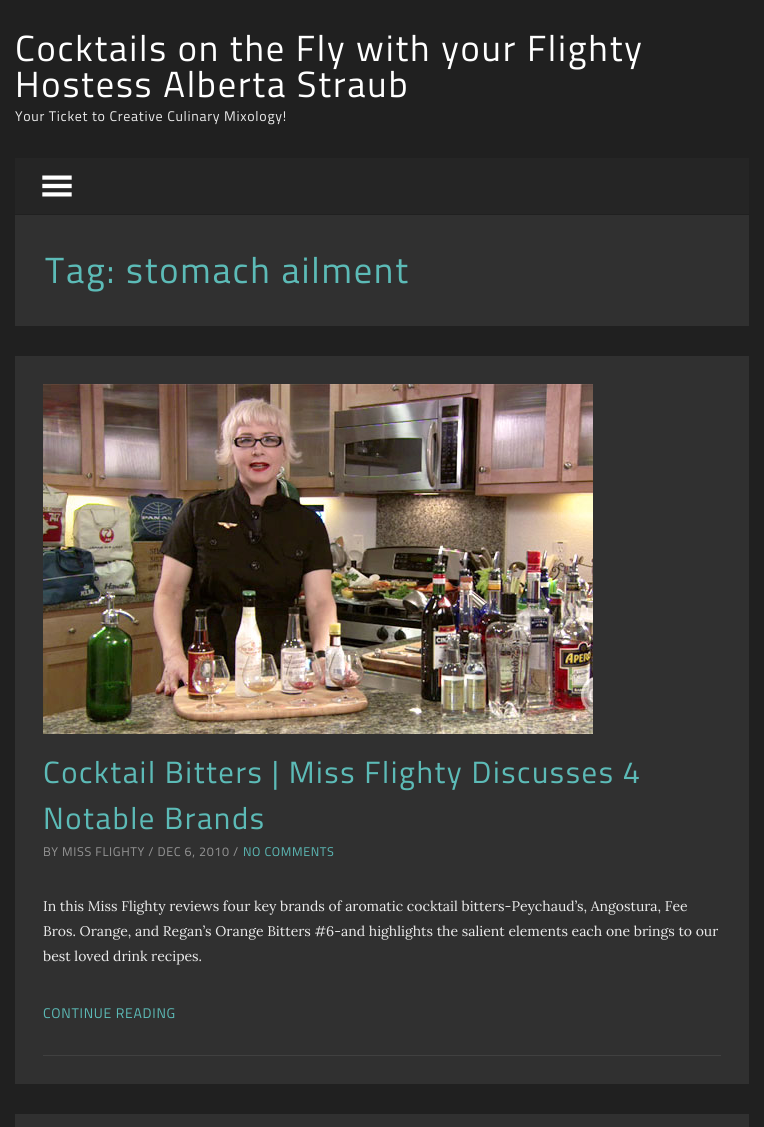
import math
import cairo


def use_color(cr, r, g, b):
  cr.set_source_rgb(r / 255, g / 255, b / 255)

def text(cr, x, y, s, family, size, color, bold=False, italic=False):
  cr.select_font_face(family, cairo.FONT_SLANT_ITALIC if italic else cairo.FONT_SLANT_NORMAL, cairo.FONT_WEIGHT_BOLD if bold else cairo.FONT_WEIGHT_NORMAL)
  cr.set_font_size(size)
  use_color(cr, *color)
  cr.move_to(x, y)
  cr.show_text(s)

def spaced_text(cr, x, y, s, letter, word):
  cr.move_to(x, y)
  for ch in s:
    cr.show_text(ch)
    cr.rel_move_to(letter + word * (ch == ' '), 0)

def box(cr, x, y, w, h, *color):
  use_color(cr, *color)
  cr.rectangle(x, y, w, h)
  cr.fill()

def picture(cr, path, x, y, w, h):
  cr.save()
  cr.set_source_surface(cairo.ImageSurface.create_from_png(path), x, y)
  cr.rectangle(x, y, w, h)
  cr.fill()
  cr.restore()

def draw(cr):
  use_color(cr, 32, 32, 32)
  cr.paint()
  box(cr, 15, 158, 734, 56, 37, 37, 37)
  picture(cr, "img_01.png", 42, 175, 30, 22)
  box(cr, 15, 215, 734, 111, 48, 48, 48)
  box(cr, 15, 356, 734, 728, 48, 48, 48)
  picture(cr, "img_02.png", 43, 384, 550, 350)
  box(cr, 43, 1055, 678, 1, 64, 64, 64)
  box(cr, 15, 1114, 734, 13, 48, 48, 48)
  cr.select_font_face("Titillium Web")
  cr.set_font_size(36.4)
  use_color(cr, 255, 255, 255)
  spaced_text(cr, 15, 61, "Cocktails on the Fly with your Flighty", 1.8, 0)
  spaced_text(cr, 15, 97, "Hostess Alberta Straub", 1.8, 0)
  cr.set_font_size(14)
  use_color(cr, 235, 235, 235)
  spaced_text(cr, 15, 121, "Your Ticket to Creative Culinary Mixology!", 0.7, 0)
  cr.set_font_size(36.4)
  use_color(cr, 92, 187, 183)
  spaced_text(cr, 45, 283, "Tag: stomach ailment", 1.8, 0)
  cr.set_font_size(30.75)
  spaced_text(cr, 43, 783, "Cocktail Bitters | Miss Flighty Discusses 4", 1.55, 0)
  spaced_text(cr, 43, 829, "Notable Brands", 1.55, 0)
  cr.set_font_size(12.6)
  use_color(cr, 149, 149, 149)
  spaced_text(cr, 43, 856, "BY MISS FLIGHTY / DEC 6, 2010 /", 0.6, 0)
  use_color(cr, 92, 187, 183)
  spaced_text(cr, 243, 856, "NO COMMENTS", 0.6, 0)
  text(cr, 43, 911, "In this Miss Flighty reviews four key brands of aromatic cocktail bitters-Peychaud’s, Angostura, Fee", "Lora", 14, (235, 235, 235))
  text(cr, 43, 936, "Bros. Orange, and Regan’s Orange Bitters #6-and highlights the salient elements each one brings to our", "Lora", 14, (235, 235, 235))
  text(cr, 43, 961, "best loved drink recipes.", "Lora", 14, (235, 235, 235))
  cr.select_font_face("Titillium Web")
  use_color(cr, 92, 187, 183)
  spaced_text(cr, 43, 1018, "CONTINUE READING", 0.7, 0)


surface = cairo.ImageSurface(cairo.FORMAT_RGB24, 764, 1127)
cr = cairo.Context(surface)
options = cairo.FontOptions()
options.set_hint_metrics(cairo.HINT_METRICS_OFF)
options.set_hint_style(cairo.HINT_STYLE_NONE)
cr.set_font_options(options)
cr.set_miter_limit(4)
draw(cr)
surface.write_to_png("out.png")
